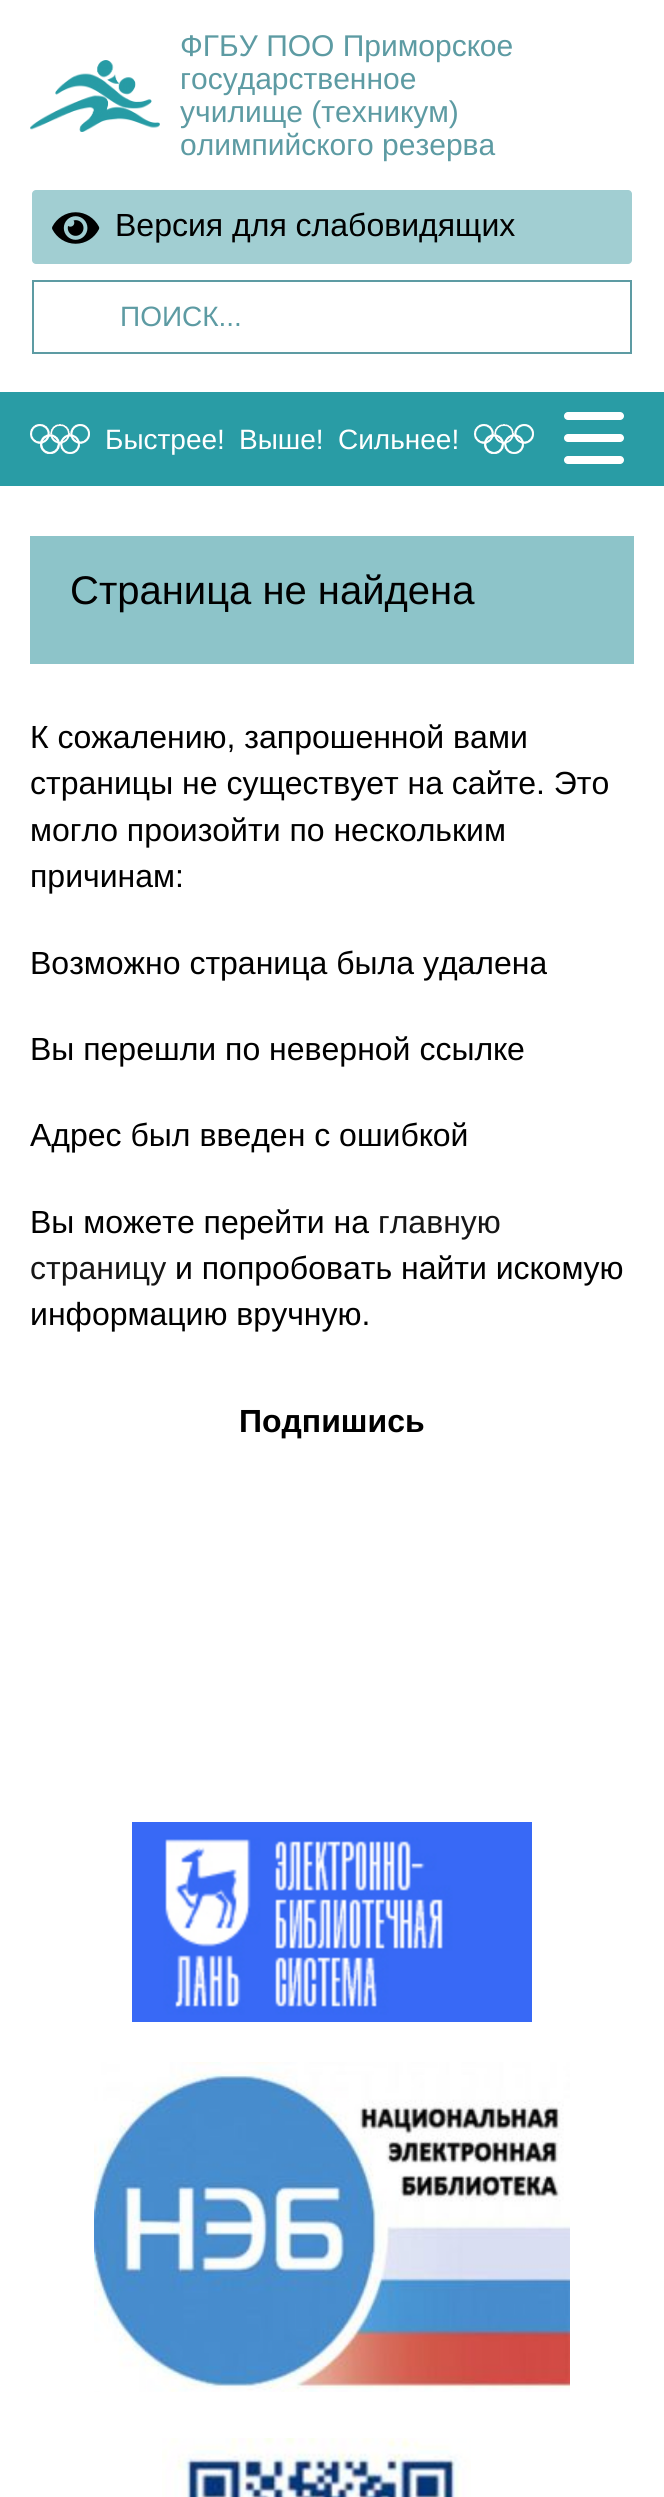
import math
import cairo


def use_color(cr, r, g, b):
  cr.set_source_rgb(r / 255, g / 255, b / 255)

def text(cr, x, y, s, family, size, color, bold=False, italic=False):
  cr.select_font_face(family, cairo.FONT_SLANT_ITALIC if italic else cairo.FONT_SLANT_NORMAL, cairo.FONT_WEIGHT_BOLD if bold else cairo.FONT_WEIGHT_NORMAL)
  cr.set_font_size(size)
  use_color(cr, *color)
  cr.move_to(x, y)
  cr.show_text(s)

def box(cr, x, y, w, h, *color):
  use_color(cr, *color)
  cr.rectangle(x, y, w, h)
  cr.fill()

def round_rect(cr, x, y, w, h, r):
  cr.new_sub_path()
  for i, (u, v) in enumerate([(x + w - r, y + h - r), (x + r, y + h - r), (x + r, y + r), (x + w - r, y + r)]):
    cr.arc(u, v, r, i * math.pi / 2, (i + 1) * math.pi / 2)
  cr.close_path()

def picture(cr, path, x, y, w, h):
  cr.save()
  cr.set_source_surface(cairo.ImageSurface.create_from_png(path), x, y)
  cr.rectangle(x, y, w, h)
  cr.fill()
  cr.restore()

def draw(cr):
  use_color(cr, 255, 255, 255)
  cr.paint()
  picture(cr, "img_01.png", 30, 60, 130, 72)
  use_color(cr, 161, 206, 210)
  round_rect(cr, 32, 190, 600, 74, 4)
  cr.fill()
  picture(cr, "img_02.png", 52, 212, 48, 32)
  cr.rectangle(33, 281, 598, 72)
  use_color(cr, 93, 155, 163)
  cr.stroke()
  box(cr, 0, 392, 664, 94, 41, 156, 165)
  picture(cr, "img_03.png", 30, 424, 60, 30)
  picture(cr, "img_04.png", 474, 424, 60, 30)
  box(cr, 30, 536, 604, 128, 141, 196, 201)
  use_color(cr, 255, 255, 255)
  round_rect(cr, 564, 412, 60, 8, 4)
  cr.fill()
  round_rect(cr, 564, 434, 60, 8, 4)
  cr.fill()
  round_rect(cr, 564, 456, 60, 8, 4)
  cr.fill()
  picture(cr, "img_05.png", 132, 1822, 400, 200)
  picture(cr, "img_06.png", 94, 2062, 476, 330)
  picture(cr, "img_07.png", 162, 2438, 309, 59)
  text(cr, 180, 56, "ФГБУ ПОО Приморское", "Liberation Sans", 30, (93, 155, 163))
  text(cr, 180, 89, "государственное", "Liberation Sans", 30, (93, 155, 163))
  text(cr, 180, 122, "училище (техникум)", "Liberation Sans", 30, (93, 155, 163))
  text(cr, 180, 155, "олимпийского резерва", "Liberation Sans", 30, (93, 155, 163))
  text(cr, 115, 236, "Версия для слабовидящих", "Liberation Sans", 32, (0, 0, 0))
  text(cr, 120, 326, "ПОИСК...", "Liberation Sans", 28, (93, 155, 163))
  text(cr, 105, 449, "Быстрее!", "Liberation Sans", 28, (255, 255, 255))
  text(cr, 239, 449, "Выше!", "Liberation Sans", 28, (255, 255, 255))
  text(cr, 338, 449, "Сильнее!", "Liberation Sans", 28, (255, 255, 255))
  text(cr, 70, 604, "Страница не найдена", "Liberation Sans", 40, (0, 0, 0))
  text(cr, 30, 748, "К сожалению, запрошенной вами", "Liberation Sans", 32, (0, 0, 0))
  text(cr, 30, 794, "страницы не существует на сайте. Это", "Liberation Sans", 32, (0, 0, 0))
  text(cr, 30, 841, "могло произойти по нескольким", "Liberation Sans", 32, (0, 0, 0))
  text(cr, 30, 887, "причинам:", "Liberation Sans", 32, (0, 0, 0))
  text(cr, 30, 974, "Возможно страница была удалена", "Liberation Sans", 32, (0, 0, 0))
  text(cr, 30, 1060, "Вы перешли по неверной ссылке", "Liberation Sans", 32, (0, 0, 0))
  text(cr, 30, 1146, "Адрес был введен c ошибкой", "Liberation Sans", 32, (0, 0, 0))
  text(cr, 30, 1233, "Вы можете перейти на", "Liberation Sans", 32, (0, 0, 0))
  text(cr, 378, 1233, "главную", "Liberation Sans", 32, (22, 22, 22))
  text(cr, 30, 1279, "страницу", "Liberation Sans", 32, (22, 22, 22))
  text(cr, 175, 1279, "и попробовать найти искомую", "Liberation Sans", 32, (0, 0, 0))
  text(cr, 30, 1325, "информацию вручную.", "Liberation Sans", 32, (0, 0, 0))
  text(cr, 239, 1432, "Подпишись", "Liberation Sans", 32, (0, 0, 0), bold=True)


surface = cairo.ImageSurface(cairo.FORMAT_RGB24, 664, 2497)
cr = cairo.Context(surface)
options = cairo.FontOptions()
options.set_hint_metrics(cairo.HINT_METRICS_OFF)
options.set_hint_style(cairo.HINT_STYLE_NONE)
cr.set_font_options(options)
cr.set_miter_limit(4)
draw(cr)
surface.write_to_png("out.png")
